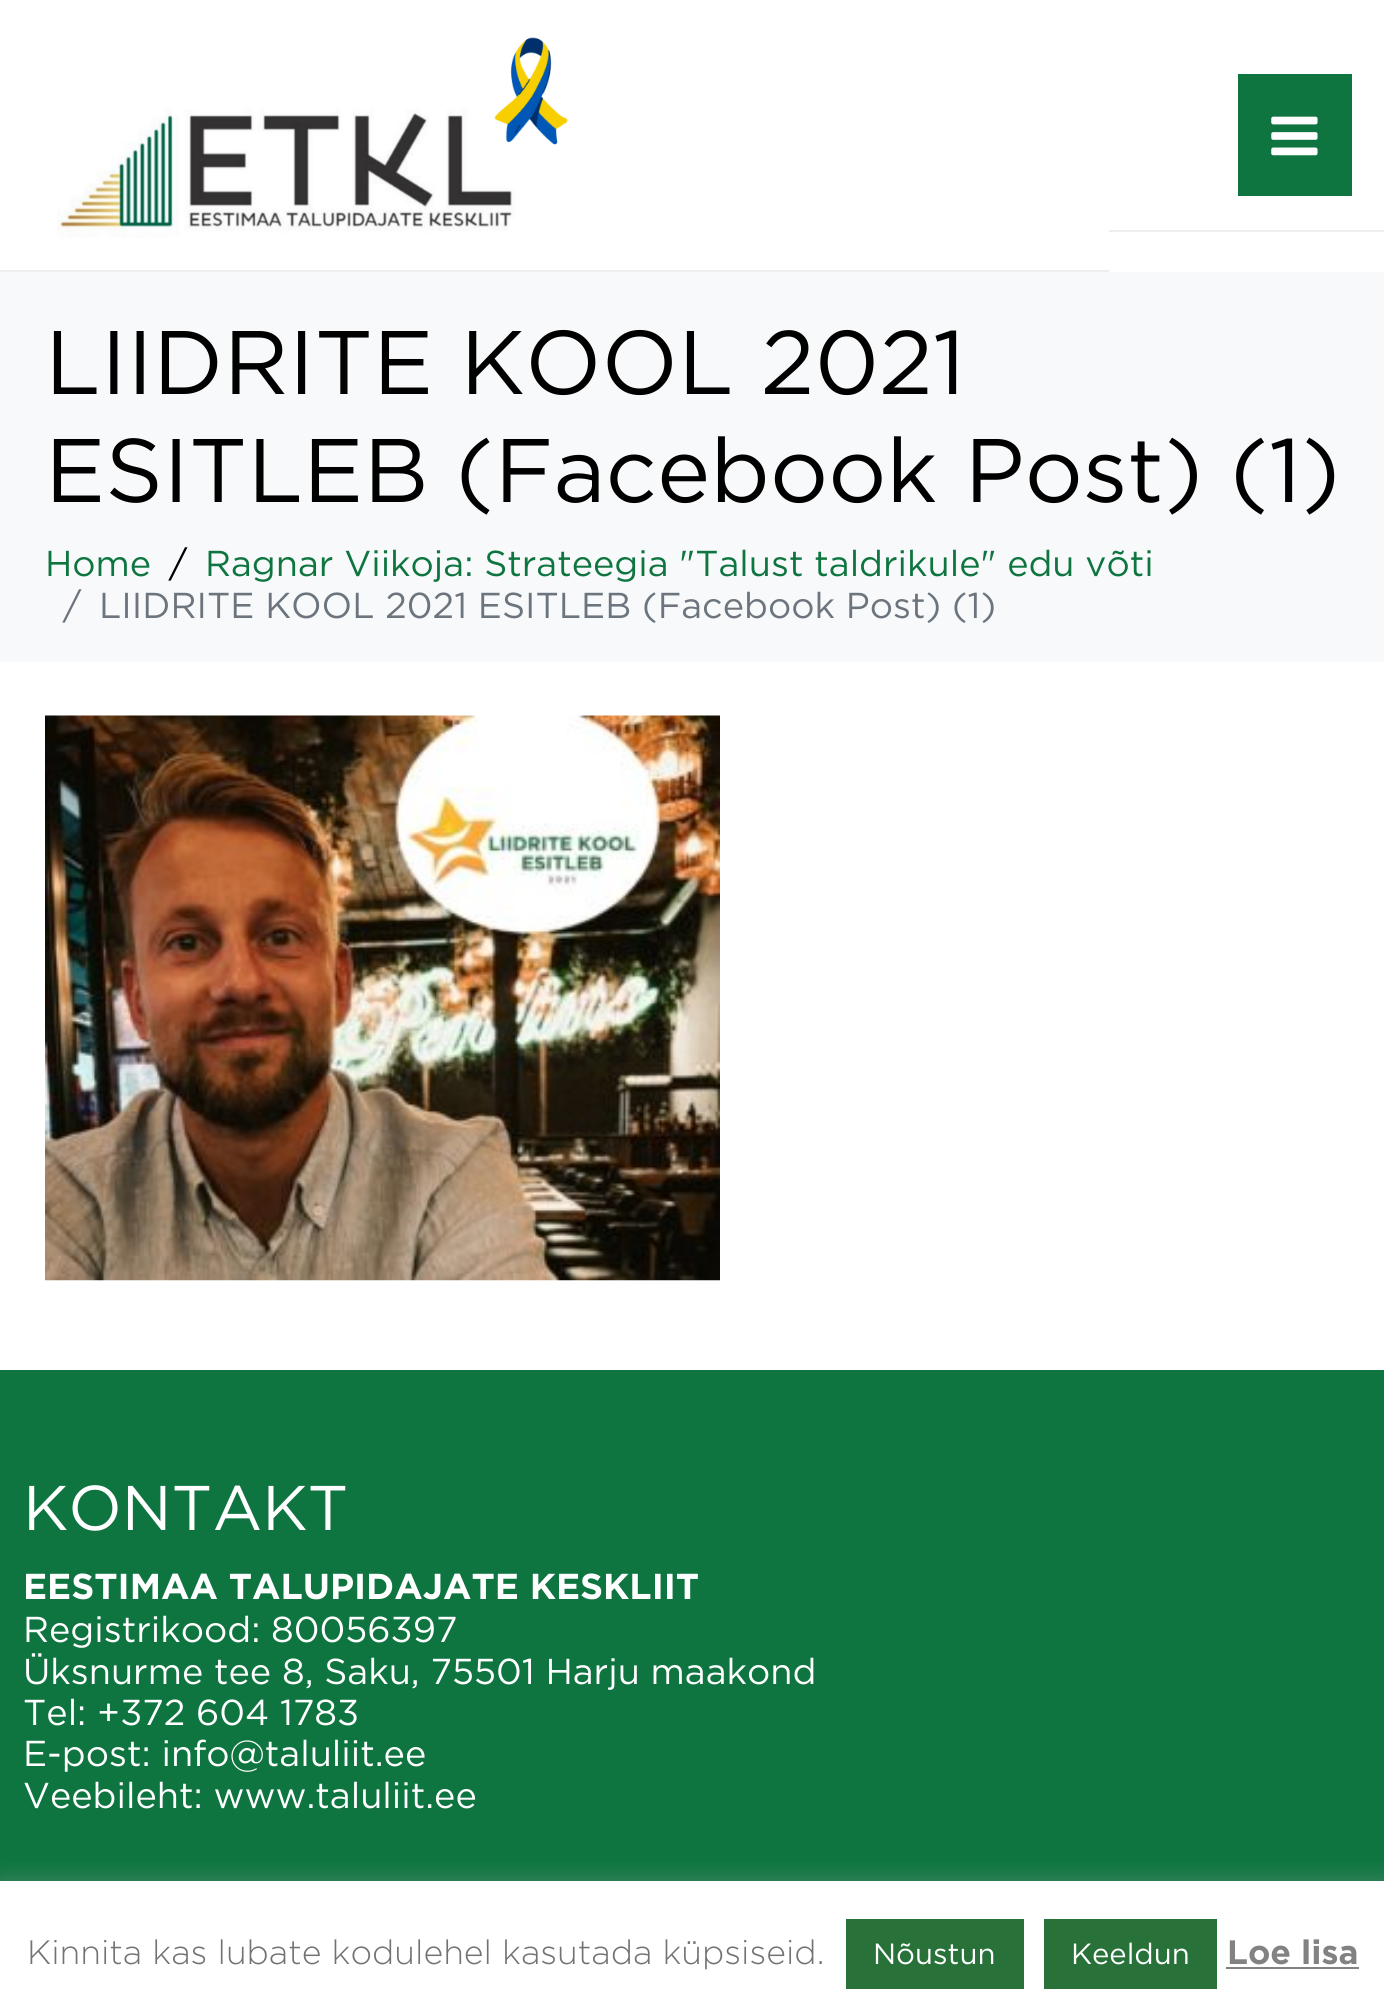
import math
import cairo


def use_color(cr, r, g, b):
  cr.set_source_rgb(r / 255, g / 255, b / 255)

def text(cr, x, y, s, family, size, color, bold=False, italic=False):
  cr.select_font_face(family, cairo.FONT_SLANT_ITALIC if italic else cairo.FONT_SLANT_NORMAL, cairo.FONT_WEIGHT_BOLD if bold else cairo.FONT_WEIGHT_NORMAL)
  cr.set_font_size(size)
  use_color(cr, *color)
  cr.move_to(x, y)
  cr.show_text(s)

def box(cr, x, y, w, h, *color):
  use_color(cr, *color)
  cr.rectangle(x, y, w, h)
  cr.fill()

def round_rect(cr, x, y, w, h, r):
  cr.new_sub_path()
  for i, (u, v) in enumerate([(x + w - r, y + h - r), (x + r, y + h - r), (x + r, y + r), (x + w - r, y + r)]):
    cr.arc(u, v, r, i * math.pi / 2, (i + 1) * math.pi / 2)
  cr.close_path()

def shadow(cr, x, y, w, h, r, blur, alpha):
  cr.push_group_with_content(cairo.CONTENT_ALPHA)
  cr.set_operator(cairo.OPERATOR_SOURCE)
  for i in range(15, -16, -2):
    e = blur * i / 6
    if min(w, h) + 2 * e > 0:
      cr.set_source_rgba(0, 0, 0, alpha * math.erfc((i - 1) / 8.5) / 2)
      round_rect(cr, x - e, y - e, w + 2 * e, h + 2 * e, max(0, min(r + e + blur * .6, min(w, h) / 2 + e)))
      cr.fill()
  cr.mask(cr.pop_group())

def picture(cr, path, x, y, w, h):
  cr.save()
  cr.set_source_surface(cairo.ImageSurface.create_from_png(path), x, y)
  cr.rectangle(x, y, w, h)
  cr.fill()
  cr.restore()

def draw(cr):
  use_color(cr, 255, 255, 255)
  cr.paint()
  box(cr, 0, 270, 1109, 2, 238, 238, 238)
  picture(cr, "img_01.png", 57, 37, 511, 201)
  box(cr, 1109, 230, 275, 2, 238, 238, 238)
  box(cr, 1238, 74, 114, 122, 14, 117, 64)
  picture(cr, "img_02.png", 1271, 116, 47, 40)
  box(cr, 0, 272, 1384, 390, 248, 249, 250)
  picture(cr, "img_03.png", 45, 715, 675, 566)
  box(cr, 0, 1370, 1384, 511, 14, 117, 64)
  use_color(cr, 172, 171, 171)
  shadow(cr, 0, 1879, 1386, 135, 0, 11, 0.3)
  box(cr, 0, 1881, 1384, 134, 255, 255, 255)
  box(cr, 846, 1919, 178, 70, 40, 114, 58)
  box(cr, 1044, 1919, 173, 70, 40, 114, 58)
  box(cr, 1226, 1967, 133, 2, 130, 130, 130)
  text(cr, 45, 394, "LIIDRITE KOOL 2021", "Gotham", 90, (0, 0, 0))
  text(cr, 45, 502, "ESITLEB (Facebook Post) (1)", "Gotham", 90, (0, 0, 0))
  text(cr, 45, 576, "Home", "Gotham", 36, (14, 117, 64))
  text(cr, 169, 576, "/", "Gotham", 36, (0, 0, 0))
  text(cr, 205, 576, "Ragnar Viikoja: Strateegia \"Talust taldrikule\" edu võti", "Gotham", 36, (14, 117, 64))
  text(cr, 63, 618, "/", "Gotham", 36, (108, 117, 125))
  text(cr, 99, 618, "LIIDRITE KOOL 2021 ESITLEB (Facebook Post) (1)", "Gotham", 36, (108, 117, 125))
  text(cr, 23, 1530, "KONTAKT", "Gotham", 63, (255, 255, 255))
  text(cr, 23, 1599, "EESTIMAA TALUPIDAJATE KESKLIIT", "Gotham", 36, (255, 255, 255), bold=True)
  text(cr, 23, 1642, "Registrikood: 80056397", "Gotham", 36, (255, 255, 255))
  text(cr, 23, 1684, "Üksnurme tee 8, Saku, 75501 Harju maakond", "Gotham", 36, (255, 255, 255))
  text(cr, 23, 1725, "Tel: +372 604 1783", "Gotham", 36, (255, 255, 255))
  text(cr, 23, 1766, "E-post: info@taluliit.ee", "Gotham", 36, (255, 255, 255))
  text(cr, 23, 1808, "Veebileht: www.taluliit.ee", "Gotham", 36, (255, 255, 255))
  text(cr, 27, 1964, "Kinnita kas lubate kodulehel kasutada küpsiseid.", "Gotham Light", 33.75, (114, 114, 114))
  text(cr, 873, 1964, "Nõustun", "Gotham", 29.25, (255, 255, 255))
  text(cr, 1071, 1964, "Keeldun", "Gotham", 29.25, (255, 255, 255))
  text(cr, 1227, 1964, "Loe lisa", "Gotham", 33.75, (130, 130, 130), bold=True)


surface = cairo.ImageSurface(cairo.FORMAT_RGB24, 1384, 2015)
cr = cairo.Context(surface)
options = cairo.FontOptions()
options.set_hint_metrics(cairo.HINT_METRICS_OFF)
options.set_hint_style(cairo.HINT_STYLE_NONE)
cr.set_font_options(options)
cr.set_miter_limit(4)
draw(cr)
surface.write_to_png("out.png")
